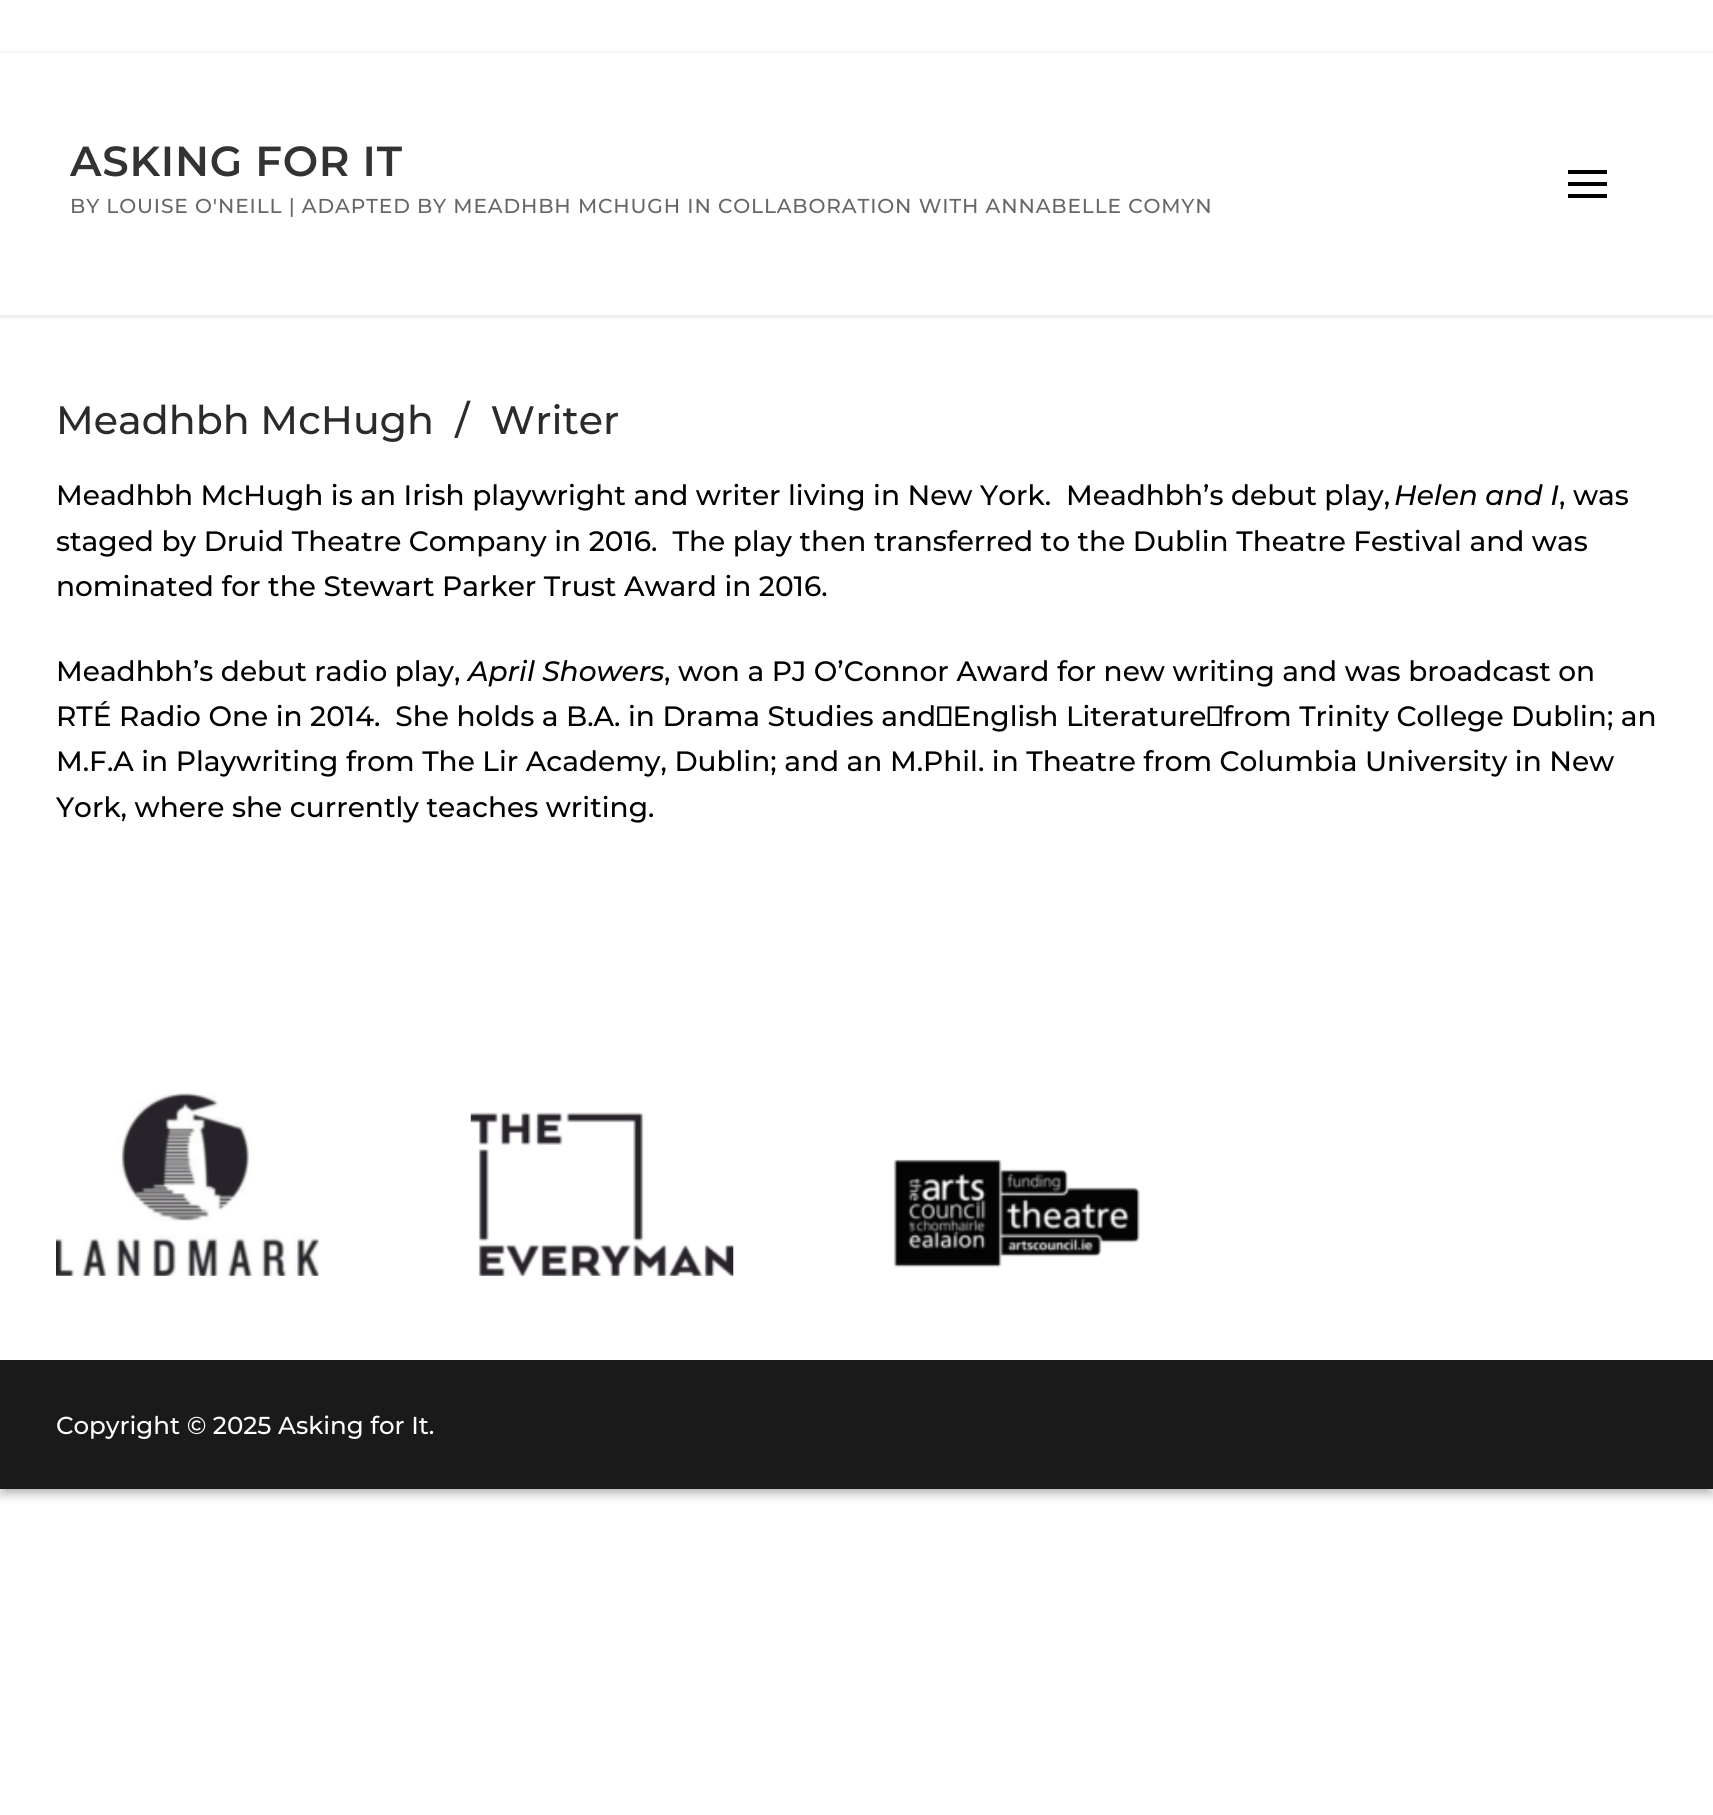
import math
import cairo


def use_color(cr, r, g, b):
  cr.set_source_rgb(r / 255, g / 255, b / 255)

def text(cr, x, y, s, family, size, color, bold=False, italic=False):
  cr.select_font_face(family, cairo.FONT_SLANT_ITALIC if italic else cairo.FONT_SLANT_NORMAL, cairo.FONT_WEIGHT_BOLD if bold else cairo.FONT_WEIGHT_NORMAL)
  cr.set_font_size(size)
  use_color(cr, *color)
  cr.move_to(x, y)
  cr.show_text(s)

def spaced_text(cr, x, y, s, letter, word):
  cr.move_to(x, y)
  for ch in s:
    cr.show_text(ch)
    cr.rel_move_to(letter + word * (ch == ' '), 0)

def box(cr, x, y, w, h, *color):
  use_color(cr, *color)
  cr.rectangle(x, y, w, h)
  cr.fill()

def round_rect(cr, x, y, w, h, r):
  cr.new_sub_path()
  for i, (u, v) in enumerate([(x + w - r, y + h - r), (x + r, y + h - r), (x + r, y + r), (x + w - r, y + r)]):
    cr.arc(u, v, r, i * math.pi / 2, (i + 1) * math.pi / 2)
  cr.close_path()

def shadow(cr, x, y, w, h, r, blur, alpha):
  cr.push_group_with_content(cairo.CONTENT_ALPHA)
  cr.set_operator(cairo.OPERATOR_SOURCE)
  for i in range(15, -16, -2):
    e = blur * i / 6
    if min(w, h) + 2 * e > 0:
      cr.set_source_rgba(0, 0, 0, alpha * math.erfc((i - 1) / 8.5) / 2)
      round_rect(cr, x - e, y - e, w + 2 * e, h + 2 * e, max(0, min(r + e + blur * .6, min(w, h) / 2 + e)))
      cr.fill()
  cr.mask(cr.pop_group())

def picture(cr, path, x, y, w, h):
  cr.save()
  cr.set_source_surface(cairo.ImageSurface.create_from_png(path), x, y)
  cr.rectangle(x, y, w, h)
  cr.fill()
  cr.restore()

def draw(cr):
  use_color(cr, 255, 255, 255)
  cr.paint()
  cr.save()
  cr.set_fill_rule(cairo.FILL_RULE_EVEN_ODD)
  cr.new_path()
  cr.move_to(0, 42)
  cr.line_to(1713, 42)
  cr.line_to(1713, 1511)
  cr.line_to(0, 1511)
  cr.close_path()
  cr.move_to(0, 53)
  cr.line_to(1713, 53)
  cr.line_to(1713, 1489)
  cr.line_to(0, 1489)
  cr.close_path()
  cr.clip()
  use_color(cr, 0, 0, 0)
  shadow(cr, 0, 58, 1713, 1437, 0, 5, 0.23)
  cr.restore()
  cr.save()
  cr.rectangle(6, 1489, 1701, 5)
  cr.clip()
  use_color(cr, 0, 0, 0)
  shadow(cr, 7, 65, 1699, 1423, 0, 5, 0.16)
  cr.restore()
  cr.save()
  cr.set_fill_rule(cairo.FILL_RULE_EVEN_ODD)
  cr.new_path()
  cr.move_to(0, 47)
  cr.line_to(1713, 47)
  cr.line_to(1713, 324)
  cr.line_to(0, 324)
  cr.close_path()
  cr.move_to(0, 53)
  cr.line_to(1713, 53)
  cr.line_to(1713, 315)
  cr.line_to(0, 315)
  cr.close_path()
  cr.clip()
  use_color(cr, 225, 229, 234)
  shadow(cr, 0, 54, 1713, 263, 0, 2, 1)
  cr.restore()
  box(cr, 1568, 182, 39, 4, 0, 0, 0)
  box(cr, 1568, 170, 39, 4, 0, 0, 0)
  box(cr, 1568, 194, 39, 4, 0, 0, 0)
  picture(cr, "img_01.png", 56, 1093, 263, 183)
  picture(cr, "img_02.png", 470, 1112, 264, 164)
  picture(cr, "img_03.png", 893, 1159, 247, 109)
  box(cr, 0, 1360, 1713, 129, 26, 26, 26)
  cr.select_font_face("Montserrat SemiBold")
  cr.set_font_size(42)
  use_color(cr, 51, 51, 51)
  spaced_text(cr, 70, 176, "ASKING FOR IT", 0.75, 0)
  cr.select_font_face("Montserrat Medium")
  cr.set_font_size(20.15)
  use_color(cr, 102, 102, 102)
  spaced_text(cr, 70, 213, "BY LOUISE O'NEILL | ADAPTED BY MEADHBH MCHUGH IN COLLABORATION WITH ANNABELLE COMYN", 0.88, 0)
  text(cr, 56, 434, "Meadhbh McHugh  /  Writer", "Montserrat Medium", 39.6, (43, 43, 43))
  text(cr, 56, 505, "Meadhbh McHugh is an Irish playwright and writer living in New York.  Meadhbh’s debut play,", "Montserrat Medium", 28, (0, 0, 0))
  text(cr, 1394, 505, "Helen and I", "Montserrat Medium", 28, (0, 0, 0), italic=True)
  text(cr, 1559, 505, ", was", "Montserrat Medium", 28, (0, 0, 0))
  text(cr, 56, 551, "staged by Druid Theatre Company in 2016.  The play then transferred to the Dublin Theatre Festival and was", "Montserrat Medium", 28, (0, 0, 0))
  text(cr, 56, 596, "nominated for the Stewart Parker Trust Award in 2016.", "Montserrat Medium", 28, (0, 0, 0))
  text(cr, 56, 681, "Meadhbh’s debut radio play,", "Montserrat Medium", 28, (0, 0, 0))
  text(cr, 468, 681, "April Showers", "Montserrat Medium", 28, (0, 0, 0), italic=True)
  text(cr, 664, 681, ", won a PJ O’Connor Award for new writing and was broadcast on", "Montserrat Medium", 28, (0, 0, 0))
  text(cr, 56, 726, "RTÉ Radio One in 2014.  She holds a B.A. in Drama Studies and English Literature from Trinity College Dublin; an", "Montserrat Medium", 28, (0, 0, 0))
  text(cr, 56, 771, "M.F.A in Playwriting from The Lir Academy, Dublin; and an M.Phil. in Theatre from Columbia University in New", "Montserrat Medium", 28, (0, 0, 0))
  text(cr, 56, 817, "York, where she currently teaches writing.", "Montserrat Medium", 28, (0, 0, 0))
  text(cr, 56, 1434, "Copyright © 2025 Asking for It.", "Montserrat Medium", 24.5, (253, 253, 253))


surface = cairo.ImageSurface(cairo.FORMAT_RGB24, 1713, 1815)
cr = cairo.Context(surface)
options = cairo.FontOptions()
options.set_hint_metrics(cairo.HINT_METRICS_OFF)
options.set_hint_style(cairo.HINT_STYLE_NONE)
cr.set_font_options(options)
cr.set_miter_limit(4)
draw(cr)
surface.write_to_png("out.png")
